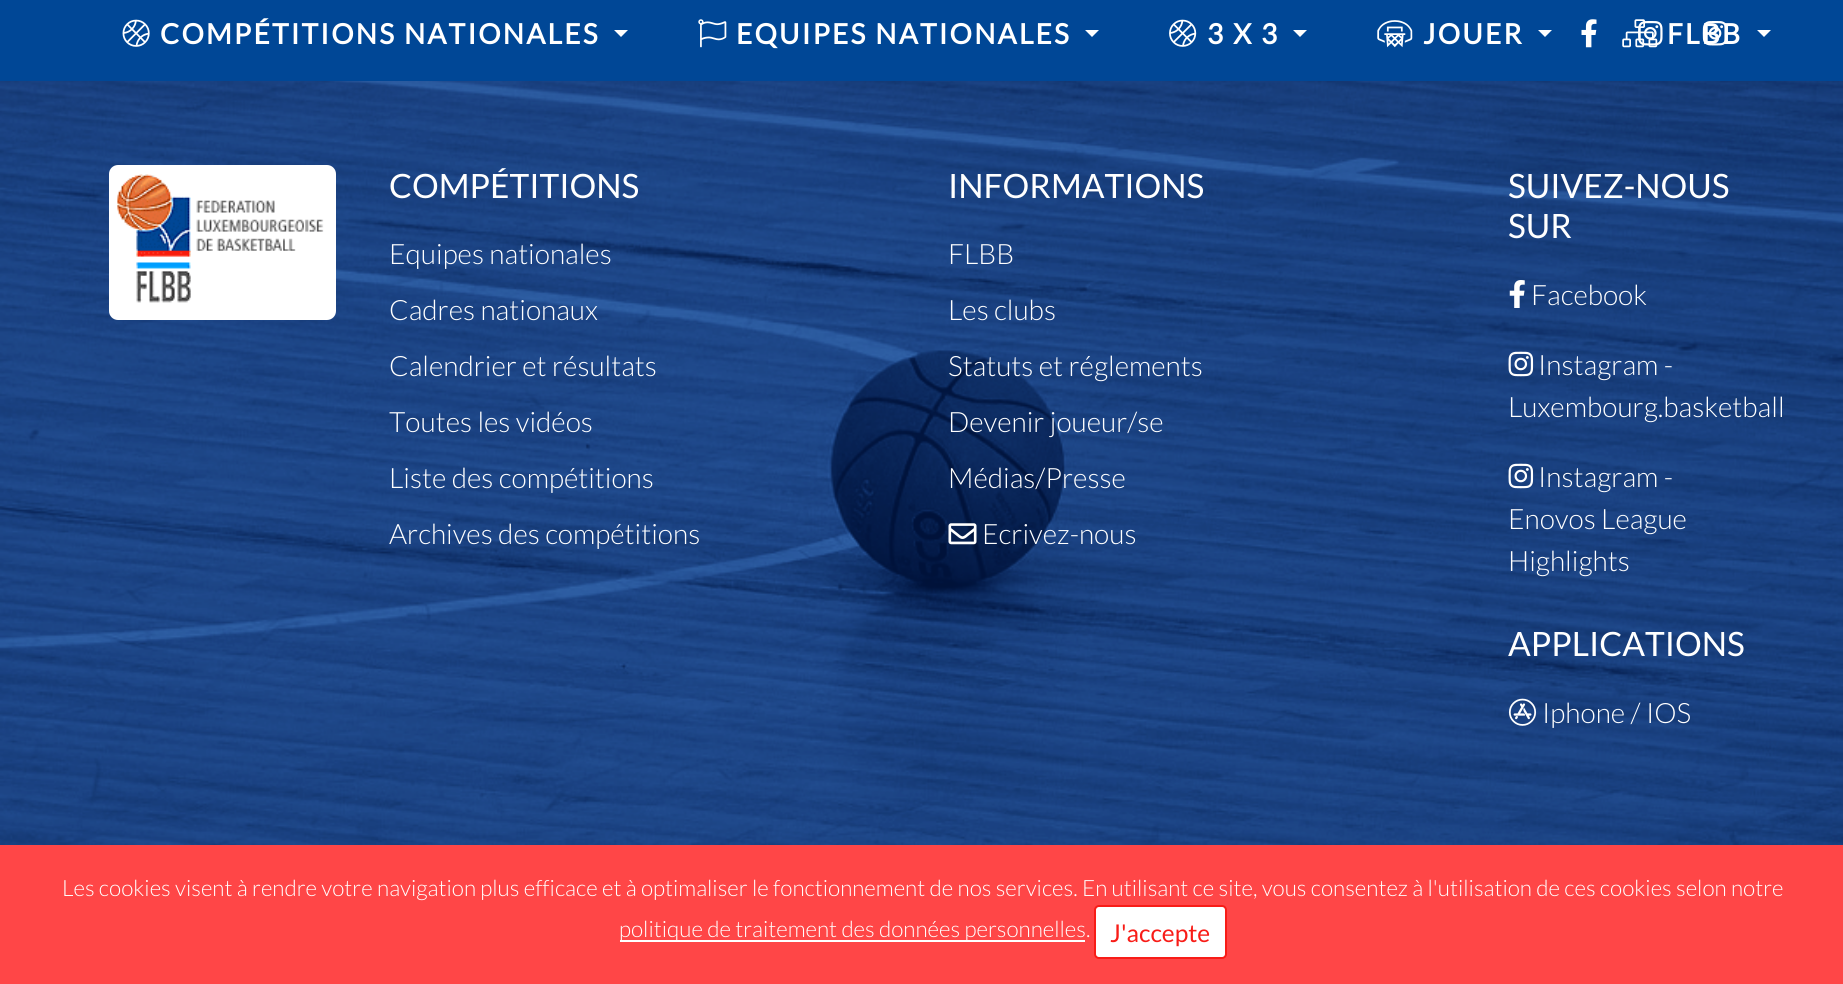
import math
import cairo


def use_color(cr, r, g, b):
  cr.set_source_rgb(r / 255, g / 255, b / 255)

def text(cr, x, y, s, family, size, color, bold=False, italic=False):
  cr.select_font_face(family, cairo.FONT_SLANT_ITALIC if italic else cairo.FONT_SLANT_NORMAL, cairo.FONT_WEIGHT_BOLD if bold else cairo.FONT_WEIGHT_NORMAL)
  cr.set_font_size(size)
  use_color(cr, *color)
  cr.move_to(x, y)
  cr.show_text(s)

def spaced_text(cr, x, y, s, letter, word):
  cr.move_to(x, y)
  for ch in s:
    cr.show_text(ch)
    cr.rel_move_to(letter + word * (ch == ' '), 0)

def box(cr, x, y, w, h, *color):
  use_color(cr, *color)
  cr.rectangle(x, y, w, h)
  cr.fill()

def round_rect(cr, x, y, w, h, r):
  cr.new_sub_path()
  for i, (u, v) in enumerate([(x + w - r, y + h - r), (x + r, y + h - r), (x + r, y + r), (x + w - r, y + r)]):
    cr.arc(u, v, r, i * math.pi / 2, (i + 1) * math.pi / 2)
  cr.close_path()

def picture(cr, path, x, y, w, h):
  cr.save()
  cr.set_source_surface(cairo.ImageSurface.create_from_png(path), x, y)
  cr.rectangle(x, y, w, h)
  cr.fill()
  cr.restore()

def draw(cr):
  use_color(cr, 255, 255, 255)
  cr.paint()
  box(cr, 0, 0, 1843, 81, 0, 71, 150)
  picture(cr, "img_01.png", 122, 19, 28, 28)
  use_color(cr, 255, 255, 255)
  cr.new_path()
  cr.move_to(614, 30)
  cr.line_to(628, 30)
  cr.line_to(621, 37)
  cr.close_path()
  cr.fill()
  picture(cr, "img_02.png", 698, 19, 29, 29)
  cr.new_path()
  cr.move_to(1085, 30)
  cr.line_to(1099, 30)
  cr.line_to(1092, 37)
  cr.close_path()
  cr.fill()
  picture(cr, "img_03.png", 1169, 19, 28, 28)
  cr.new_path()
  cr.move_to(1293, 30)
  cr.line_to(1307, 30)
  cr.line_to(1300, 37)
  cr.close_path()
  cr.fill()
  picture(cr, "img_04.png", 1377, 20, 36, 28)
  cr.new_path()
  cr.move_to(1538, 30)
  cr.line_to(1552, 30)
  cr.line_to(1545, 37)
  cr.close_path()
  cr.fill()
  picture(cr, "img_07.png", 1638, 21, 25, 25)
  picture(cr, "img_05.png", 1622, 19, 36, 29)
  cr.new_path()
  cr.move_to(1757, 30)
  cr.line_to(1771, 30)
  cr.line_to(1764, 37)
  cr.close_path()
  cr.fill()
  picture(cr, "img_06.png", 1581, 19, 16, 29)
  picture(cr, "img_08.png", 1702, 21, 26, 25)
  picture(cr, "img_09.png", 0, 81, 1843, 764)
  round_rect(cr, 109, 165, 227, 155, 9)
  cr.fill()
  picture(cr, "img_10.png", 117, 174, 207, 129)
  picture(cr, "img_11.png", 948, 523, 29, 22)
  picture(cr, "img_12.png", 1509, 280, 16, 28)
  picture(cr, "img_13.png", 1508, 351, 26, 26)
  picture(cr, "img_14.png", 1508, 463, 26, 26)
  picture(cr, "img_15.png", 1508, 698, 29, 28)
  box(cr, 0, 845, 1843, 139, 255, 70, 71)
  box(cr, 620, 940, 465, 2, 255, 255, 255)
  round_rect(cr, 1095, 906, 131, 52, 4)
  cr.fill_preserve()
  use_color(cr, 248, 28, 23)
  cr.stroke()
  cr.select_font_face("Lato", cairo.FONT_SLANT_NORMAL, cairo.FONT_WEIGHT_BOLD)
  cr.set_font_size(28)
  use_color(cr, 255, 255, 255)
  spaced_text(cr, 160, 44, "COMPÉTITIONS NATIONALES", 2.25, 0)
  spaced_text(cr, 736, 44, "EQUIPES NATIONALES", 2.25, 0)
  spaced_text(cr, 1207, 44, "3 X 3", 2.25, 0)
  spaced_text(cr, 1423, 44, "JOUER", 2.25, 0)
  spaced_text(cr, 1667, 44, "FLBB", 2.25, 0)
  text(cr, 389, 198, "COMPÉTITIONS", "Lato", 33.5, (255, 255, 255))
  text(cr, 389, 264, "Equipes nationales", "Lato Light", 28, (255, 255, 255))
  text(cr, 389, 320, "Cadres nationaux", "Lato Light", 28, (255, 255, 255))
  text(cr, 389, 376, "Calendrier et résultats", "Lato Light", 28, (255, 255, 255))
  text(cr, 389, 432, "Toutes les vidéos", "Lato Light", 28, (255, 255, 255))
  text(cr, 389, 488, "Liste des compétitions", "Lato Light", 28, (255, 255, 255))
  text(cr, 389, 544, "Archives des compétitions", "Lato Light", 28, (255, 255, 255))
  text(cr, 948, 198, "INFORMATIONS", "Lato", 33.5, (255, 255, 255))
  text(cr, 948, 264, "FLBB", "Lato Light", 28, (255, 255, 255))
  text(cr, 948, 320, "Les clubs", "Lato Light", 28, (255, 255, 255))
  text(cr, 948, 376, "Statuts et réglements", "Lato Light", 28, (255, 255, 255))
  text(cr, 948, 432, "Devenir joueur/se", "Lato Light", 28, (255, 255, 255))
  text(cr, 948, 488, "Médias/Presse", "Lato Light", 28, (255, 255, 255))
  text(cr, 982, 544, "Ecrivez-nous", "Lato Light", 28, (255, 255, 255))
  text(cr, 1508, 198, "SUIVEZ-NOUS", "Lato", 33.5, (255, 255, 255))
  text(cr, 1508, 238, "SUR", "Lato", 33.5, (255, 255, 255))
  text(cr, 1531, 305, "Facebook", "Lato Light", 28, (255, 255, 255))
  text(cr, 1538, 375, "Instagram -", "Lato Light", 28, (255, 255, 255))
  text(cr, 1508, 417, "Luxembourg.basketball", "Lato Light", 28, (255, 255, 255))
  text(cr, 1538, 487, "Instagram -", "Lato Light", 28, (255, 255, 255))
  text(cr, 1508, 529, "Enovos League", "Lato Light", 28, (255, 255, 255))
  text(cr, 1508, 571, "Highlights", "Lato Light", 28, (255, 255, 255))
  text(cr, 1508, 656, "APPLICATIONS", "Lato", 33.5, (255, 255, 255))
  text(cr, 1542, 723, "Iphone / IOS", "Lato Light", 28, (255, 255, 255))
  text(cr, 62, 896, "Les cookies visent à rendre votre navigation plus efficace et à optimaliser le fonctionnement de nos services. En utilisant ce site, vous consentez à l'utilisation de ces cookies selon notre", "Lato Light", 22.4, (255, 255, 255))
  text(cr, 619, 937, "politique de traitement des données personnelles.", "Lato Light", 22.4, (255, 255, 255))
  text(cr, 1110, 942, "J'accepte", "Lato", 24.5, (248, 28, 23))


surface = cairo.ImageSurface(cairo.FORMAT_RGB24, 1843, 984)
cr = cairo.Context(surface)
options = cairo.FontOptions()
options.set_hint_metrics(cairo.HINT_METRICS_OFF)
options.set_hint_style(cairo.HINT_STYLE_NONE)
cr.set_font_options(options)
cr.set_miter_limit(4)
draw(cr)
surface.write_to_png("out.png")
